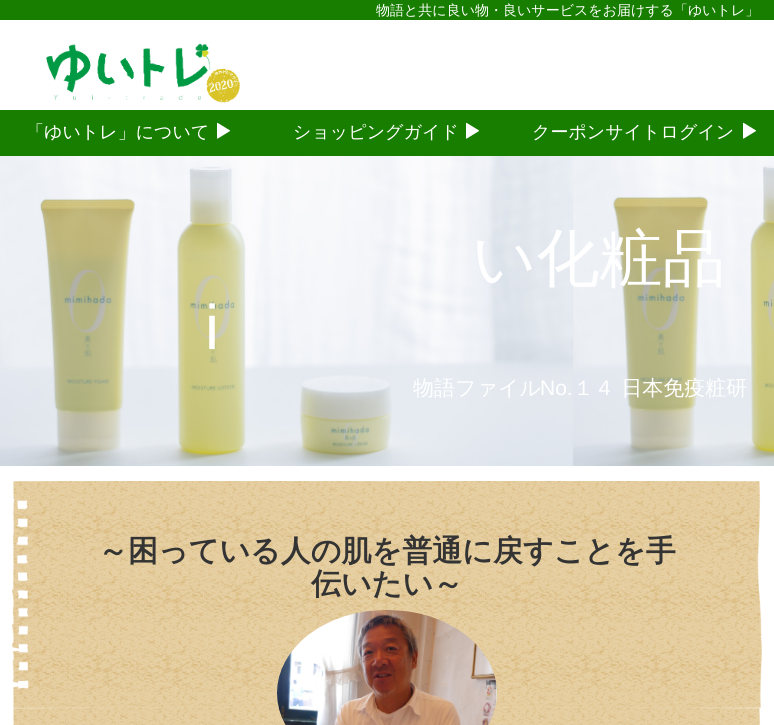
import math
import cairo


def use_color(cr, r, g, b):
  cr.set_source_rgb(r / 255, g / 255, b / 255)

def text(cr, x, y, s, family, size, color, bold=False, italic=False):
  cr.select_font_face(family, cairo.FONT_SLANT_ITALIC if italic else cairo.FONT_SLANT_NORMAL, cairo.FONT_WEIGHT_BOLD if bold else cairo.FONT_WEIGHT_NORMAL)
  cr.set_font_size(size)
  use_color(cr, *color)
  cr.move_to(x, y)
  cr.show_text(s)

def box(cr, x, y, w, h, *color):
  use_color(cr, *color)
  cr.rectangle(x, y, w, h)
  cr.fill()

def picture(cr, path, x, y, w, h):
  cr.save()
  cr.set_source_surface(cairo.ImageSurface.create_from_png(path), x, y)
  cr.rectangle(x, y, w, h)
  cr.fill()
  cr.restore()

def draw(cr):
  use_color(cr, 255, 255, 255)
  cr.paint()
  box(cr, 0, 0, 774, 20, 23, 126, 0)
  picture(cr, "img_01.png", 46, 43, 194, 60)
  box(cr, 0, 110, 774, 46, 23, 126, 0)
  picture(cr, "img_02.png", 217, 122, 14, 17)
  picture(cr, "img_02.png", 466, 122, 14, 17)
  picture(cr, "img_02.png", 743, 122, 14, 17)
  picture(cr, "img_03.png", 0, 156, 774, 310)
  picture(cr, "img_04.png", 12, 481, 750, 244)
  picture(cr, "img_05.png", 277, 610, 220, 115)
  text(cr, 376, 15, "物語と共に良い物・良いサービスをお届けする「ゆいトレ」", "WenQuanYi Zen Hei Medium", 14, (255, 255, 255))
  text(cr, 26, 138, "「ゆいトレ」について", "WenQuanYi Zen Hei Medium", 18, (255, 255, 255))
  text(cr, 293, 138, "ショッピングガイド", "WenQuanYi Zen Hei Medium", 18, (255, 255, 255))
  text(cr, 532, 138, "クーポンサイトログイン", "WenQuanYi Zen Hei Medium", 18, (255, 255, 255))
  text(cr, 472, 280, "い化粧品", "WenQuanYi Zen Hei Medium", 63, (255, 255, 255))
  text(cr, 205, 349, "i", "Liberation Sans", 63, (255, 255, 255))
  text(cr, 413, 395, "物語ファイル", "WenQuanYi Zen Hei Medium", 21, (255, 255, 255))
  text(cr, 540, 395, "No.", "Liberation Sans", 21, (255, 255, 255))
  text(cr, 573, 395, "１４ 日本免疫粧研", "WenQuanYi Zen Hei Medium", 21, (255, 255, 255))
  text(cr, 98, 561, "～困っている人の肌を普通に戻すことを手", "WenQuanYi Zen Hei", 30, (51, 51, 51), bold=True)
  text(cr, 311, 594, "伝いたい～", "WenQuanYi Zen Hei", 30, (51, 51, 51), bold=True)


surface = cairo.ImageSurface(cairo.FORMAT_RGB24, 774, 725)
cr = cairo.Context(surface)
options = cairo.FontOptions()
options.set_hint_metrics(cairo.HINT_METRICS_OFF)
options.set_hint_style(cairo.HINT_STYLE_NONE)
cr.set_font_options(options)
cr.set_miter_limit(4)
draw(cr)
surface.write_to_png("out.png")
